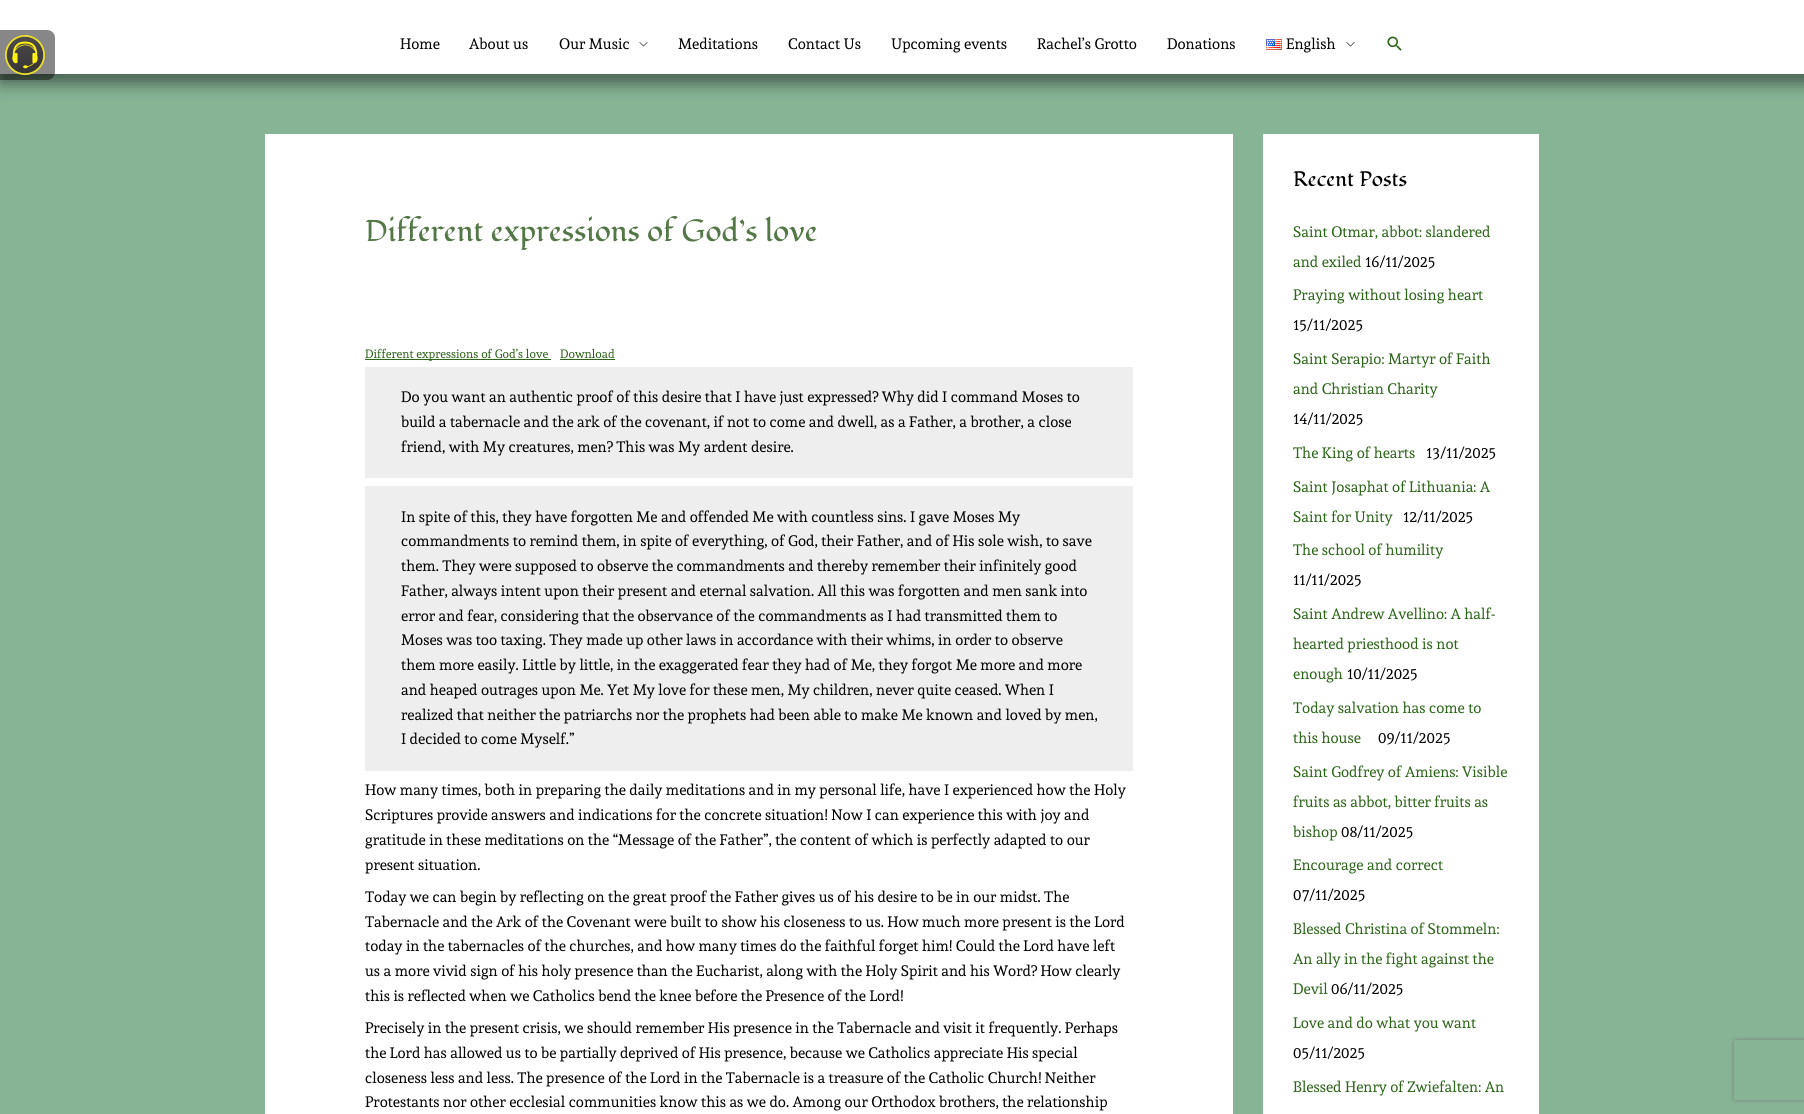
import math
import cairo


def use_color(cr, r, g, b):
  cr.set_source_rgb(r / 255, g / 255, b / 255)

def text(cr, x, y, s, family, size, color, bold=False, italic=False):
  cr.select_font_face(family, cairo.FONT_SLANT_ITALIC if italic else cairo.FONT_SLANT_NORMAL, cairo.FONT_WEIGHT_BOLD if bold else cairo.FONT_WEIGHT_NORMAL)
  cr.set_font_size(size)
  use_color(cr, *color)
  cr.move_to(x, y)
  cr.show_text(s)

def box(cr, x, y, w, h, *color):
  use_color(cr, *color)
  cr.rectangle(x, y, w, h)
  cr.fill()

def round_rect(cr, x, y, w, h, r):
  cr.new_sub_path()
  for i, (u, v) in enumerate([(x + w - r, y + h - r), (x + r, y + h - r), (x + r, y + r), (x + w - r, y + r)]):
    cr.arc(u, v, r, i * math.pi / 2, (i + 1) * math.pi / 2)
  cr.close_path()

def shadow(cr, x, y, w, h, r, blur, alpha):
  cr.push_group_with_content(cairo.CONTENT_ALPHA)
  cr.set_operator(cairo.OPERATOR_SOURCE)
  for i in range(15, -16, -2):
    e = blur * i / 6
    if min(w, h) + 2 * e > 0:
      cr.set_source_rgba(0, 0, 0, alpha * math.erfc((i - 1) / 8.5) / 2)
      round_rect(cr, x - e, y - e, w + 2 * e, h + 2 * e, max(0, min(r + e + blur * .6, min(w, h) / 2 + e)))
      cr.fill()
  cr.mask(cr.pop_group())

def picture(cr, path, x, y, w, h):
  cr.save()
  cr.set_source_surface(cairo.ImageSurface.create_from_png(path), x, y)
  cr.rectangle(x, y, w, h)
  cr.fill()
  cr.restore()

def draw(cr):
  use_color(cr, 134, 180, 149)
  cr.paint()
  use_color(cr, 0, 0, 0)
  shadow(cr, 0, -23, 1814, 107, 0, 7.5, 0.45)
  box(cr, 0, 0, 1804, 74, 255, 255, 255)
  cr.set_source_rgba(0.071, 0.067, 0.067, 0.5)
  cr.new_path()
  cr.move_to(-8, 30)
  cr.line_to(47, 30)
  cr.curve_to(51.5, 30, 55, 33.5, 55, 38)
  cr.line_to(55, 72)
  cr.curve_to(55, 76.5, 51.5, 80, 47, 80)
  cr.line_to(-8, 80)
  cr.close_path()
  cr.fill()
  picture(cr, "img_01.png", 5, 35, 40, 40)
  picture(cr, "img_02.png", 639, 42, 9, 5)
  picture(cr, "img_03.png", 1266, 39, 16, 11)
  picture(cr, "img_02.png", 1346, 42, 9, 5)
  picture(cr, "img_04.png", 1387, 36, 15, 15)
  box(cr, 265, 134, 968, 980, 255, 255, 255)
  box(cr, 365, 359, 186, 1, 44, 100, 24)
  box(cr, 560, 359, 55, 1, 44, 100, 24)
  box(cr, 365, 367, 768, 111, 238, 238, 238)
  box(cr, 365, 486, 768, 285, 238, 238, 238)
  box(cr, 1263, 134, 276, 980, 255, 255, 255)
  cr.save()
  cr.set_fill_rule(cairo.FILL_RULE_EVEN_ODD)
  cr.new_path()
  cr.move_to(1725, 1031)
  cr.line_to(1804, 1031)
  cr.line_to(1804, 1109)
  cr.line_to(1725, 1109)
  cr.close_path()
  cr.move_to(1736, 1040)
  cr.line_to(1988, 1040)
  cr.curve_to(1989, 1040, 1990, 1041, 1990, 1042)
  cr.line_to(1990, 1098)
  cr.curve_to(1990, 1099, 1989, 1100, 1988, 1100)
  cr.line_to(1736, 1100)
  cr.curve_to(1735, 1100, 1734, 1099, 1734, 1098)
  cr.line_to(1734, 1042)
  cr.curve_to(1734, 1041, 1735, 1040, 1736, 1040)
  cr.close_path()
  cr.clip()
  use_color(cr, 128, 128, 128)
  shadow(cr, 1734, 1040, 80, 60, 2, 2.5, 1)
  cr.restore()
  text(cr, 400, 49, "Home", "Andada", 15, (0, 0, 0))
  text(cr, 469, 49, "About us", "Andada", 15, (0, 0, 0))
  text(cr, 559, 49, "Our Music", "Andada", 15, (0, 0, 0))
  text(cr, 678, 49, "Meditations", "Andada", 15, (0, 0, 0))
  text(cr, 788, 49, "Contact Us", "Andada", 15, (0, 0, 0))
  text(cr, 891, 49, "Upcoming events", "Andada", 15, (0, 0, 0))
  text(cr, 1037, 49, "Rachel’s Grotto", "Andada", 15, (0, 0, 0))
  text(cr, 1167, 49, "Donations", "Andada", 15, (0, 0, 0))
  text(cr, 1286, 49, "English", "Andada", 15, (0, 0, 0))
  text(cr, 365, 241, "Different expressions of God’s love", "Fondamento", 30, (83, 119, 70))
  text(cr, 365, 358, "Different expressions of God’s love", "Andada", 12, (44, 100, 24))
  text(cr, 560, 358, "Download", "Andada", 12, (44, 100, 24))
  text(cr, 401, 402, "Do you want an authentic proof of this desire that I have just expressed? Why did I command Moses to", "Andada", 15, (0, 0, 0))
  text(cr, 401, 427, "build a tabernacle and the ark of the covenant, if not to come and dwell, as a Father, a brother, a close", "Andada", 15, (0, 0, 0))
  text(cr, 401, 452, "friend, with My creatures, men? This was My ardent desire.", "Andada", 15, (0, 0, 0))
  text(cr, 401, 522, "In spite of this, they have forgotten Me and offended Me with countless sins. I gave Moses My", "Andada", 15, (0, 0, 0))
  text(cr, 401, 546, "commandments to remind them, in spite of everything, of God, their Father, and of His sole wish, to save", "Andada", 15, (0, 0, 0))
  text(cr, 401, 571, "them. They were supposed to observe the commandments and thereby remember their infinitely good", "Andada", 15, (0, 0, 0))
  text(cr, 401, 596, "Father, always intent upon their present and eternal salvation. All this was forgotten and men sank into", "Andada", 15, (0, 0, 0))
  text(cr, 401, 621, "error and fear, considering that the observance of the commandments as I had transmitted them to", "Andada", 15, (0, 0, 0))
  text(cr, 401, 645, "Moses was too taxing. They made up other laws in accordance with their whims, in order to observe", "Andada", 15, (0, 0, 0))
  text(cr, 401, 670, "them more easily. Little by little, in the exaggerated fear they had of Me, they forgot Me more and more", "Andada", 15, (0, 0, 0))
  text(cr, 401, 695, "and heaped outrages upon Me. Yet My love for these men, My children, never quite ceased. When I", "Andada", 15, (0, 0, 0))
  text(cr, 401, 720, "realized that neither the patriarchs nor the prophets had been able to make Me known and loved by men,", "Andada", 15, (0, 0, 0))
  text(cr, 401, 744, "I decided to come Myself.”", "Andada", 15, (0, 0, 0))
  text(cr, 365, 795, "How many times, both in preparing the daily meditations and in my personal life, have I experienced how the Holy", "Andada", 15, (0, 0, 0))
  text(cr, 365, 820, "Scriptures provide answers and indications for the concrete situation! Now I can experience this with joy and", "Andada", 15, (0, 0, 0))
  text(cr, 365, 845, "gratitude in these meditations on the “Message of the Father”, the content of which is perfectly adapted to our", "Andada", 15, (0, 0, 0))
  text(cr, 365, 870, "present situation.", "Andada", 15, (0, 0, 0))
  text(cr, 365, 902, "Today we can begin by reflecting on the great proof the Father gives us of his desire to be in our midst. The", "Andada", 15, (0, 0, 0))
  text(cr, 365, 927, "Tabernacle and the Ark of the Covenant were built to show his closeness to us. How much more present is the Lord", "Andada", 15, (0, 0, 0))
  text(cr, 365, 951, "today in the tabernacles of the churches, and how many times do the faithful forget him! Could the Lord have left", "Andada", 15, (0, 0, 0))
  text(cr, 365, 976, "us a more vivid sign of his holy presence than the Eucharist, along with the Holy Spirit and his Word? How clearly", "Andada", 15, (0, 0, 0))
  text(cr, 365, 1001, "this is reflected when we Catholics bend the knee before the Presence of the Lord!", "Andada", 15, (0, 0, 0))
  text(cr, 365, 1033, "Precisely in the present crisis, we should remember His presence in the Tabernacle and visit it frequently. Perhaps", "Andada", 15, (0, 0, 0))
  text(cr, 365, 1058, "the Lord has allowed us to be partially deprived of His presence, because we Catholics appreciate His special", "Andada", 15, (0, 0, 0))
  text(cr, 365, 1083, "closeness less and less. The presence of the Lord in the Tabernacle is a treasure of the Catholic Church! Neither", "Andada", 15, (0, 0, 0))
  text(cr, 365, 1107, "Protestants nor other ecclesial communities know this as we do. Among our Orthodox brothers, the relationship", "Andada", 15, (0, 0, 0))
  text(cr, 1293, 186, "Recent Posts", "Fondamento", 21, (0, 0, 0))
  text(cr, 1293, 237, "Saint Otmar, abbot: slandered", "Andada", 15, (44, 100, 24))
  text(cr, 1293, 267, "and exiled", "Andada", 15, (44, 100, 24))
  text(cr, 1365, 267, "16/11/2025", "Andada", 15, (0, 0, 0))
  text(cr, 1293, 300, "Praying without losing heart", "Andada", 15, (44, 100, 24))
  text(cr, 1293, 330, "15/11/2025", "Andada", 15, (0, 0, 0))
  text(cr, 1293, 364, "Saint Serapio: Martyr of Faith", "Andada", 15, (44, 100, 24))
  text(cr, 1293, 394, "and Christian Charity", "Andada", 15, (44, 100, 24))
  text(cr, 1293, 424, "14/11/2025", "Andada", 15, (0, 0, 0))
  text(cr, 1293, 458, "The King of hearts", "Andada", 15, (44, 100, 24))
  text(cr, 1426, 458, "13/11/2025", "Andada", 15, (0, 0, 0))
  text(cr, 1293, 492, "Saint Josaphat of Lithuania: A", "Andada", 15, (44, 100, 24))
  text(cr, 1293, 522, "Saint for Unity", "Andada", 15, (44, 100, 24))
  text(cr, 1403, 522, "12/11/2025", "Andada", 15, (0, 0, 0))
  text(cr, 1293, 555, "The school of humility", "Andada", 15, (44, 100, 24))
  text(cr, 1293, 585, "11/11/2025", "Andada", 15, (0, 0, 0))
  text(cr, 1293, 619, "Saint Andrew Avellino: A half-", "Andada", 15, (44, 100, 24))
  text(cr, 1293, 649, "hearted priesthood is not", "Andada", 15, (44, 100, 24))
  text(cr, 1293, 679, "enough", "Andada", 15, (44, 100, 24))
  text(cr, 1347, 679, "10/11/2025", "Andada", 15, (0, 0, 0))
  text(cr, 1293, 713, "Today salvation has come to", "Andada", 15, (44, 100, 24))
  text(cr, 1293, 743, "this house", "Andada", 15, (44, 100, 24))
  text(cr, 1378, 743, "09/11/2025", "Andada", 15, (0, 0, 0))
  text(cr, 1293, 777, "Saint Godfrey of Amiens: Visible", "Andada", 15, (44, 100, 24))
  text(cr, 1293, 807, "fruits as abbot, bitter fruits as", "Andada", 15, (44, 100, 24))
  text(cr, 1293, 837, "bishop", "Andada", 15, (44, 100, 24))
  text(cr, 1341, 837, "08/11/2025", "Andada", 15, (0, 0, 0))
  text(cr, 1293, 870, "Encourage and correct", "Andada", 15, (44, 100, 24))
  text(cr, 1293, 900, "07/11/2025", "Andada", 15, (0, 0, 0))
  text(cr, 1293, 934, "Blessed Christina of Stommeln:", "Andada", 15, (44, 100, 24))
  text(cr, 1293, 964, "An ally in the fight against the", "Andada", 15, (44, 100, 24))
  text(cr, 1293, 994, "Devil", "Andada", 15, (44, 100, 24))
  text(cr, 1331, 994, "06/11/2025", "Andada", 15, (0, 0, 0))
  text(cr, 1293, 1028, "Love and do what you want", "Andada", 15, (44, 100, 24))
  text(cr, 1293, 1058, "05/11/2025", "Andada", 15, (0, 0, 0))
  text(cr, 1293, 1092, "Blessed Henry of Zwiefalten: An", "Andada", 15, (44, 100, 24))


surface = cairo.ImageSurface(cairo.FORMAT_RGB24, 1804, 1114)
cr = cairo.Context(surface)
options = cairo.FontOptions()
options.set_hint_metrics(cairo.HINT_METRICS_OFF)
options.set_hint_style(cairo.HINT_STYLE_NONE)
cr.set_font_options(options)
cr.set_miter_limit(4)
draw(cr)
surface.write_to_png("out.png")
